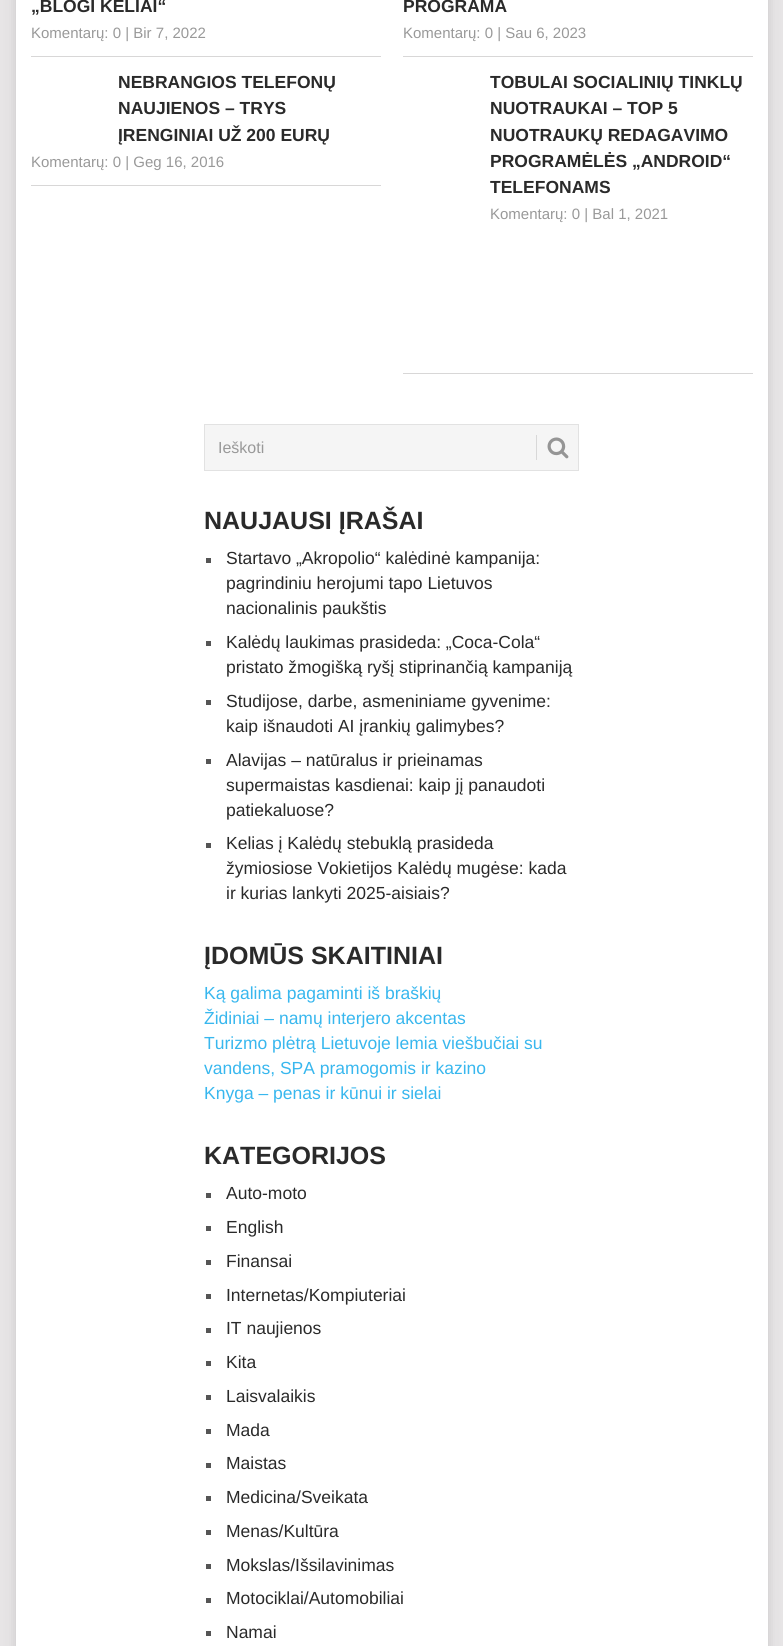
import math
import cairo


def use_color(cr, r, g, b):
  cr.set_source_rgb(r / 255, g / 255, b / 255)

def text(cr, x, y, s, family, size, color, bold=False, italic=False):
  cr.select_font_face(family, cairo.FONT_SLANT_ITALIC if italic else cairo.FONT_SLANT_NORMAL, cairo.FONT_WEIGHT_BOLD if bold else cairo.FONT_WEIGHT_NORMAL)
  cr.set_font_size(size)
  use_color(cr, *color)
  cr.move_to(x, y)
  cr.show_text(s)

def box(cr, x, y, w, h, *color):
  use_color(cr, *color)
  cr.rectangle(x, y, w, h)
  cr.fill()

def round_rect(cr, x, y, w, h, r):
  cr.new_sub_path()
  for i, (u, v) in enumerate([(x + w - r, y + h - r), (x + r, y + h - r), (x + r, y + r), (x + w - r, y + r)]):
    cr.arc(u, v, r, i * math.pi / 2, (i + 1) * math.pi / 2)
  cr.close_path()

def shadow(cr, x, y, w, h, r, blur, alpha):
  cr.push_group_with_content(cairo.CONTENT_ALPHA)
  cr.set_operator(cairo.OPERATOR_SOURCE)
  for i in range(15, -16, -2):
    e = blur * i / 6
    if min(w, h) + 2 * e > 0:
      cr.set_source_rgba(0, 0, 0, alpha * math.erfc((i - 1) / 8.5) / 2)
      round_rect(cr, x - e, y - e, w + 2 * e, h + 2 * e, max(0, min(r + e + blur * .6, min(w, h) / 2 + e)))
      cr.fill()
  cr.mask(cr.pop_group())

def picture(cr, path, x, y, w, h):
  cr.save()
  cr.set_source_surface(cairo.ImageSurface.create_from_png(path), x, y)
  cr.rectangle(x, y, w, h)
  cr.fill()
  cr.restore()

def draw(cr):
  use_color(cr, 231, 229, 230)
  cr.paint()
  use_color(cr, 50, 50, 50)
  shadow(cr, 16, -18, 752, 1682, 0, 6, 0.17)
  box(cr, 16, 0, 752, 1646, 255, 255, 255)
  box(cr, 31, 56, 350, 1, 216, 215, 215)
  box(cr, 403, 56, 350, 1, 216, 215, 215)
  box(cr, 31, 185, 350, 1, 216, 215, 215)
  box(cr, 403, 373, 350, 1, 216, 215, 215)
  use_color(cr, 245, 245, 245)
  cr.rectangle(204.5, 424.5, 374, 46)
  cr.fill_preserve()
  use_color(cr, 226, 226, 226)
  cr.set_line_width(1)
  cr.stroke()
  box(cr, 536, 435, 1, 25, 216, 216, 216)
  picture(cr, "img_01.png", 547, 437, 22, 22)
  box(cr, 206, 558, 5, 5, 85, 85, 85)
  box(cr, 206, 641, 5, 5, 85, 85, 85)
  box(cr, 206, 700, 5, 5, 85, 85, 85)
  box(cr, 206, 759, 5, 5, 85, 85, 85)
  box(cr, 206, 843, 5, 5, 85, 85, 85)
  box(cr, 206, 1193, 5, 5, 85, 85, 85)
  box(cr, 206, 1226, 5, 5, 85, 85, 85)
  box(cr, 206, 1260, 5, 5, 85, 85, 85)
  box(cr, 206, 1294, 5, 5, 85, 85, 85)
  box(cr, 206, 1328, 5, 5, 85, 85, 85)
  box(cr, 206, 1361, 5, 5, 85, 85, 85)
  box(cr, 206, 1395, 5, 5, 85, 85, 85)
  box(cr, 206, 1429, 5, 5, 85, 85, 85)
  box(cr, 206, 1463, 5, 5, 85, 85, 85)
  box(cr, 206, 1496, 5, 5, 85, 85, 85)
  box(cr, 206, 1530, 5, 5, 85, 85, 85)
  box(cr, 206, 1564, 5, 5, 85, 85, 85)
  box(cr, 206, 1598, 5, 5, 85, 85, 85)
  box(cr, 206, 1631, 5, 5, 85, 85, 85)
  text(cr, 31, 12, "„BLOGI KELIAI“", "Liberation Sans", 17.5, (42, 42, 42), bold=True)
  text(cr, 31, 38, "Komentarų: 0 | Bir 7, 2022", "Liberation Sans", 15, (153, 153, 153))
  text(cr, 403, 12, "PROGRAMA", "Liberation Sans", 17.5, (42, 42, 42), bold=True)
  text(cr, 403, 38, "Komentarų: 0 | Sau 6, 2023", "Liberation Sans", 15, (153, 153, 153))
  text(cr, 118, 88, "NEBRANGIOS TELEFONŲ", "Liberation Sans", 17.5, (42, 42, 42), bold=True)
  text(cr, 118, 114, "NAUJIENOS – TRYS", "Liberation Sans", 17.5, (42, 42, 42), bold=True)
  text(cr, 118, 141, "ĮRENGINIAI UŽ 200 EURŲ", "Liberation Sans", 17.5, (42, 42, 42), bold=True)
  text(cr, 31, 167, "Komentarų: 0 | Geg 16, 2016", "Liberation Sans", 15, (153, 153, 153))
  text(cr, 490, 88, "TOBULAI SOCIALINIŲ TINKLŲ", "Liberation Sans", 17.5, (42, 42, 42), bold=True)
  text(cr, 490, 114, "NUOTRAUKAI – TOP 5", "Liberation Sans", 17.5, (42, 42, 42), bold=True)
  text(cr, 490, 141, "NUOTRAUKŲ REDAGAVIMO", "Liberation Sans", 17.5, (42, 42, 42), bold=True)
  text(cr, 490, 167, "PROGRAMĖLĖS „ANDROID“", "Liberation Sans", 17.5, (42, 42, 42), bold=True)
  text(cr, 490, 193, "TELEFONAMS", "Liberation Sans", 17.5, (42, 42, 42), bold=True)
  text(cr, 490, 219, "Komentarų: 0 | Bal 1, 2021", "Liberation Sans", 15, (153, 153, 153))
  text(cr, 218, 453, "Ieškoti", "Liberation Sans", 16, (153, 153, 153))
  text(cr, 204, 529, "NAUJAUSI ĮRAŠAI", "Liberation Sans", 25, (42, 42, 42), bold=True)
  text(cr, 226, 564, "Startavo „Akropolio“ kalėdinė kampanija:", "Liberation Sans", 17.5, (42, 42, 42))
  text(cr, 226, 589, "pagrindiniu herojumi tapo Lietuvos", "Liberation Sans", 17.5, (42, 42, 42))
  text(cr, 226, 614, "nacionalinis paukštis", "Liberation Sans", 17.5, (42, 42, 42))
  text(cr, 226, 648, "Kalėdų laukimas prasideda: „Coca-Cola“", "Liberation Sans", 17.5, (42, 42, 42))
  text(cr, 226, 673, "pristato žmogišką ryšį stiprinančią kampaniją", "Liberation Sans", 17.5, (42, 42, 42))
  text(cr, 226, 707, "Studijose, darbe, asmeniniame gyvenime:", "Liberation Sans", 17.5, (42, 42, 42))
  text(cr, 226, 732, "kaip išnaudoti AI įrankių galimybes?", "Liberation Sans", 17.5, (42, 42, 42))
  text(cr, 226, 766, "Alavijas – natūralus ir prieinamas", "Liberation Sans", 17.5, (42, 42, 42))
  text(cr, 226, 791, "supermaistas kasdienai: kaip jį panaudoti", "Liberation Sans", 17.5, (42, 42, 42))
  text(cr, 226, 816, "patiekaluose?", "Liberation Sans", 17.5, (42, 42, 42))
  text(cr, 226, 849, "Kelias į Kalėdų stebuklą prasideda", "Liberation Sans", 17.5, (42, 42, 42))
  text(cr, 226, 874, "žymiosiose Vokietijos Kalėdų mugėse: kada", "Liberation Sans", 17.5, (42, 42, 42))
  text(cr, 226, 899, "ir kurias lankyti 2025-aisiais?", "Liberation Sans", 17.5, (42, 42, 42))
  text(cr, 204, 964, "ĮDOMŪS SKAITINIAI", "Liberation Sans", 25, (42, 42, 42), bold=True)
  text(cr, 204, 999, "Ką galima pagaminti iš braškių", "Liberation Sans", 17.5, (56, 183, 238))
  text(cr, 204, 1024, "Židiniai – namų interjero akcentas", "Liberation Sans", 17.5, (56, 183, 238))
  text(cr, 204, 1049, "Turizmo plėtrą Lietuvoje lemia viešbučiai su", "Liberation Sans", 17.5, (56, 183, 238))
  text(cr, 204, 1074, "vandens, SPA pramogomis ir kazino", "Liberation Sans", 17.5, (56, 183, 238))
  text(cr, 204, 1099, "Knyga – penas ir kūnui ir sielai", "Liberation Sans", 17.5, (56, 183, 238))
  text(cr, 204, 1164, "KATEGORIJOS", "Liberation Sans", 25, (42, 42, 42), bold=True)
  text(cr, 226, 1199, "Auto-moto", "Liberation Sans", 17.5, (42, 42, 42))
  text(cr, 226, 1233, "English", "Liberation Sans", 17.5, (42, 42, 42))
  text(cr, 226, 1267, "Finansai", "Liberation Sans", 17.5, (42, 42, 42))
  text(cr, 226, 1301, "Internetas/Kompiuteriai", "Liberation Sans", 17.5, (42, 42, 42))
  text(cr, 226, 1334, "IT naujienos", "Liberation Sans", 17.5, (42, 42, 42))
  text(cr, 226, 1368, "Kita", "Liberation Sans", 17.5, (42, 42, 42))
  text(cr, 226, 1402, "Laisvalaikis", "Liberation Sans", 17.5, (42, 42, 42))
  text(cr, 226, 1436, "Mada", "Liberation Sans", 17.5, (42, 42, 42))
  text(cr, 226, 1469, "Maistas", "Liberation Sans", 17.5, (42, 42, 42))
  text(cr, 226, 1503, "Medicina/Sveikata", "Liberation Sans", 17.5, (42, 42, 42))
  text(cr, 226, 1537, "Menas/Kultūra", "Liberation Sans", 17.5, (42, 42, 42))
  text(cr, 226, 1571, "Mokslas/Išsilavinimas", "Liberation Sans", 17.5, (42, 42, 42))
  text(cr, 226, 1604, "Motociklai/Automobiliai", "Liberation Sans", 17.5, (42, 42, 42))
  text(cr, 226, 1638, "Namai", "Liberation Sans", 17.5, (42, 42, 42))


surface = cairo.ImageSurface(cairo.FORMAT_RGB24, 783, 1646)
cr = cairo.Context(surface)
options = cairo.FontOptions()
options.set_hint_metrics(cairo.HINT_METRICS_OFF)
options.set_hint_style(cairo.HINT_STYLE_NONE)
cr.set_font_options(options)
cr.set_miter_limit(4)
draw(cr)
surface.write_to_png("out.png")
